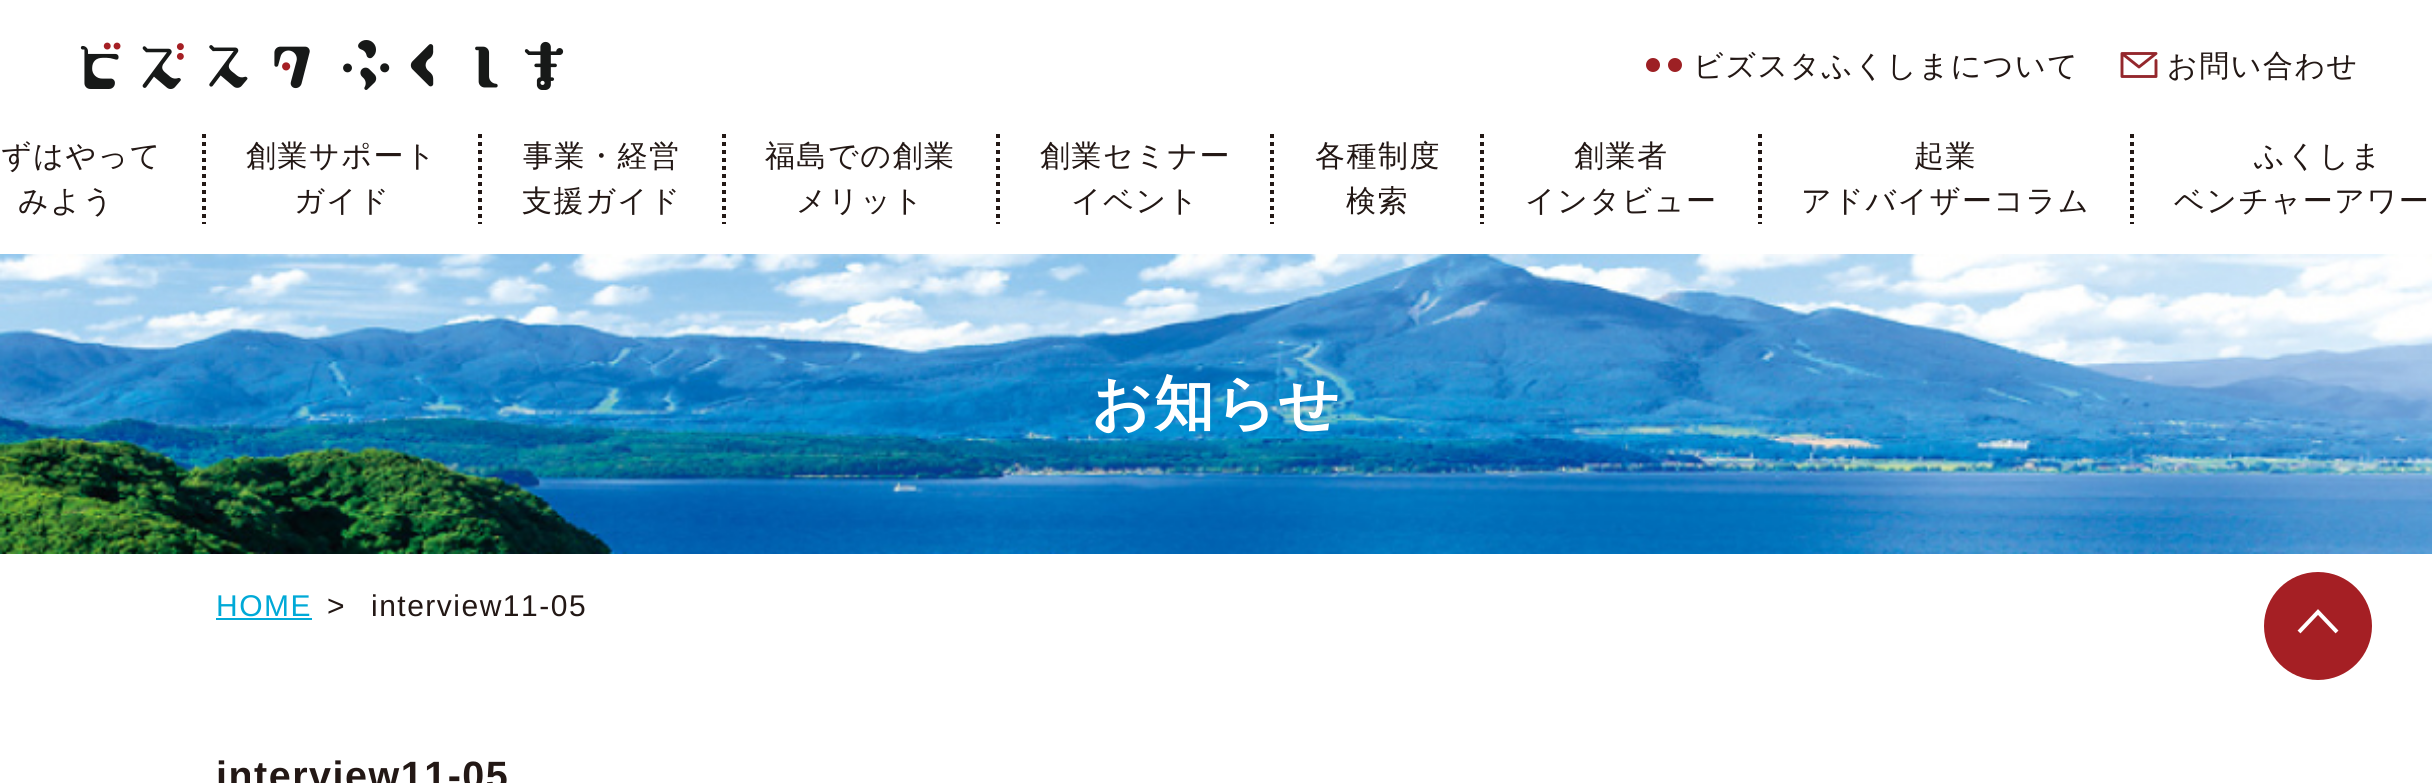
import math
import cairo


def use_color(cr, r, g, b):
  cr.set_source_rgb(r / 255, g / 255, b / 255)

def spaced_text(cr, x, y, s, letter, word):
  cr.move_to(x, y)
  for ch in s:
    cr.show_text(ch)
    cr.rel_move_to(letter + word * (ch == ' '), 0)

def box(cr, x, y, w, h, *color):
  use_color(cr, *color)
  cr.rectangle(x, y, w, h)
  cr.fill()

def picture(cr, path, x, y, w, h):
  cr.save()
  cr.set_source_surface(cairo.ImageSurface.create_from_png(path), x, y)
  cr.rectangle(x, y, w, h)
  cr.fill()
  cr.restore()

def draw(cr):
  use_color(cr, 255, 255, 255)
  cr.paint()
  picture(cr, "img_01.png", 80, 40, 484, 50)
  use_color(cr, 157, 32, 36)
  cr.arc(1653, 65, 7, 0, 2 * math.pi)
  cr.fill()
  cr.arc(1675, 65, 7, 0, 2 * math.pi)
  cr.fill()
  cr.new_path()
  cr.move_to(2156, 60.5)
  cr.line_to(2156, 76.5)
  cr.line_to(2122, 76.5)
  cr.line_to(2122, 53.5)
  cr.line_to(2156, 53.5)
  cr.line_to(2139, 67)
  cr.line_to(2122, 53.5)
  use_color(cr, 148, 39, 44)
  cr.set_line_width(2.9)
  cr.set_line_cap(cairo.LINE_CAP_ROUND)
  cr.set_line_join(cairo.LINE_JOIN_ROUND)
  cr.stroke()
  cr.new_path()
  cr.move_to(204, 134)
  cr.line_to(204, 224)
  use_color(cr, 35, 24, 21)
  cr.set_line_width(4)
  cr.set_line_cap(cairo.LINE_CAP_BUTT)
  cr.set_line_join(cairo.LINE_JOIN_MITER)
  cr.set_dash([4, 4])
  cr.stroke()
  cr.new_path()
  cr.move_to(480, 134)
  cr.line_to(480, 224)
  cr.stroke()
  cr.new_path()
  cr.move_to(724, 134)
  cr.line_to(724, 224)
  cr.stroke()
  cr.new_path()
  cr.move_to(998, 134)
  cr.line_to(998, 224)
  cr.stroke()
  cr.new_path()
  cr.move_to(1272, 134)
  cr.line_to(1272, 224)
  cr.stroke()
  cr.new_path()
  cr.move_to(1482, 134)
  cr.line_to(1482, 224)
  cr.stroke()
  cr.new_path()
  cr.move_to(1760, 134)
  cr.line_to(1760, 224)
  cr.stroke()
  cr.new_path()
  cr.move_to(2132, 134)
  cr.line_to(2132, 224)
  cr.stroke()
  picture(cr, "img_02.png", 0, 254, 2432, 300)
  box(cr, 216, 618, 96, 2, 0, 169, 215)
  use_color(cr, 165, 31, 36)
  cr.arc(2318, 626, 54, 0, 2 * math.pi)
  cr.fill()
  cr.new_path()
  cr.move_to(2299, 632)
  cr.line_to(2318, 612)
  cr.line_to(2337, 632)
  use_color(cr, 255, 255, 255)
  cr.set_dash([])
  cr.stroke()
  cr.select_font_face("WenQuanYi Zen Hei Medium")
  cr.set_font_size(30)
  use_color(cr, 35, 24, 21)
  spaced_text(cr, 1693, 76, "ビズスタふくしまについて", 1.5, 0)
  spaced_text(cr, 2167, 76, "お問い合わせ", 1.5, 0)
  spaced_text(cr, 1, 166, "ずはやって", 1.5, 0)
  spaced_text(cr, 18, 211, "みよう", 1.5, 0)
  spaced_text(cr, 246, 166, "創業サポート", 1.5, 0)
  spaced_text(cr, 294, 211, "ガイド", 1.5, 0)
  spaced_text(cr, 523, 166, "事業・経営", 1.5, 0)
  spaced_text(cr, 522, 211, "支援ガイド", 1.5, 0)
  spaced_text(cr, 765, 166, "福島での創業", 1.5, 0)
  spaced_text(cr, 796, 211, "メリット", 1.5, 0)
  spaced_text(cr, 1040, 166, "創業セミナー", 1.5, 0)
  spaced_text(cr, 1071, 211, "イベント", 1.5, 0)
  spaced_text(cr, 1315, 166, "各種制度", 1.5, 0)
  spaced_text(cr, 1346, 211, "検索", 1.5, 0)
  spaced_text(cr, 1574, 166, "創業者", 1.5, 0)
  spaced_text(cr, 1525, 211, "インタビュー", 1.5, 0)
  spaced_text(cr, 1914, 166, "起業", 1.5, 0)
  spaced_text(cr, 1801, 211, "アドバイザーコラム", 1.5, 0)
  spaced_text(cr, 2254, 166, "ふくしま", 1.5, 0)
  spaced_text(cr, 2174, 211, "ベンチャーアワー", 1.5, 0)
  cr.select_font_face("WenQuanYi Zen Hei", cairo.FONT_SLANT_NORMAL, cairo.FONT_WEIGHT_BOLD)
  cr.set_font_size(60)
  use_color(cr, 255, 255, 255)
  spaced_text(cr, 1091, 424, "お知らせ", 1.5, 0)
  cr.select_font_face("Liberation Sans")
  cr.set_font_size(30)
  use_color(cr, 0, 169, 215)
  spaced_text(cr, 216, 616, "HOME", 1.5, 0)
  use_color(cr, 35, 24, 21)
  spaced_text(cr, 327, 616, ">", 1.5, 0)
  spaced_text(cr, 371, 616, "interview11-05", 1.5, 0)
  cr.select_font_face("Liberation Sans", cairo.FONT_SLANT_NORMAL, cairo.FONT_WEIGHT_BOLD)
  cr.set_font_size(39.5)
  spaced_text(cr, 216, 789, "interview11-05", 1.5, 0)


surface = cairo.ImageSurface(cairo.FORMAT_RGB24, 2432, 783)
cr = cairo.Context(surface)
options = cairo.FontOptions()
options.set_hint_metrics(cairo.HINT_METRICS_OFF)
options.set_hint_style(cairo.HINT_STYLE_NONE)
cr.set_font_options(options)
cr.set_miter_limit(4)
draw(cr)
surface.write_to_png("out.png")
